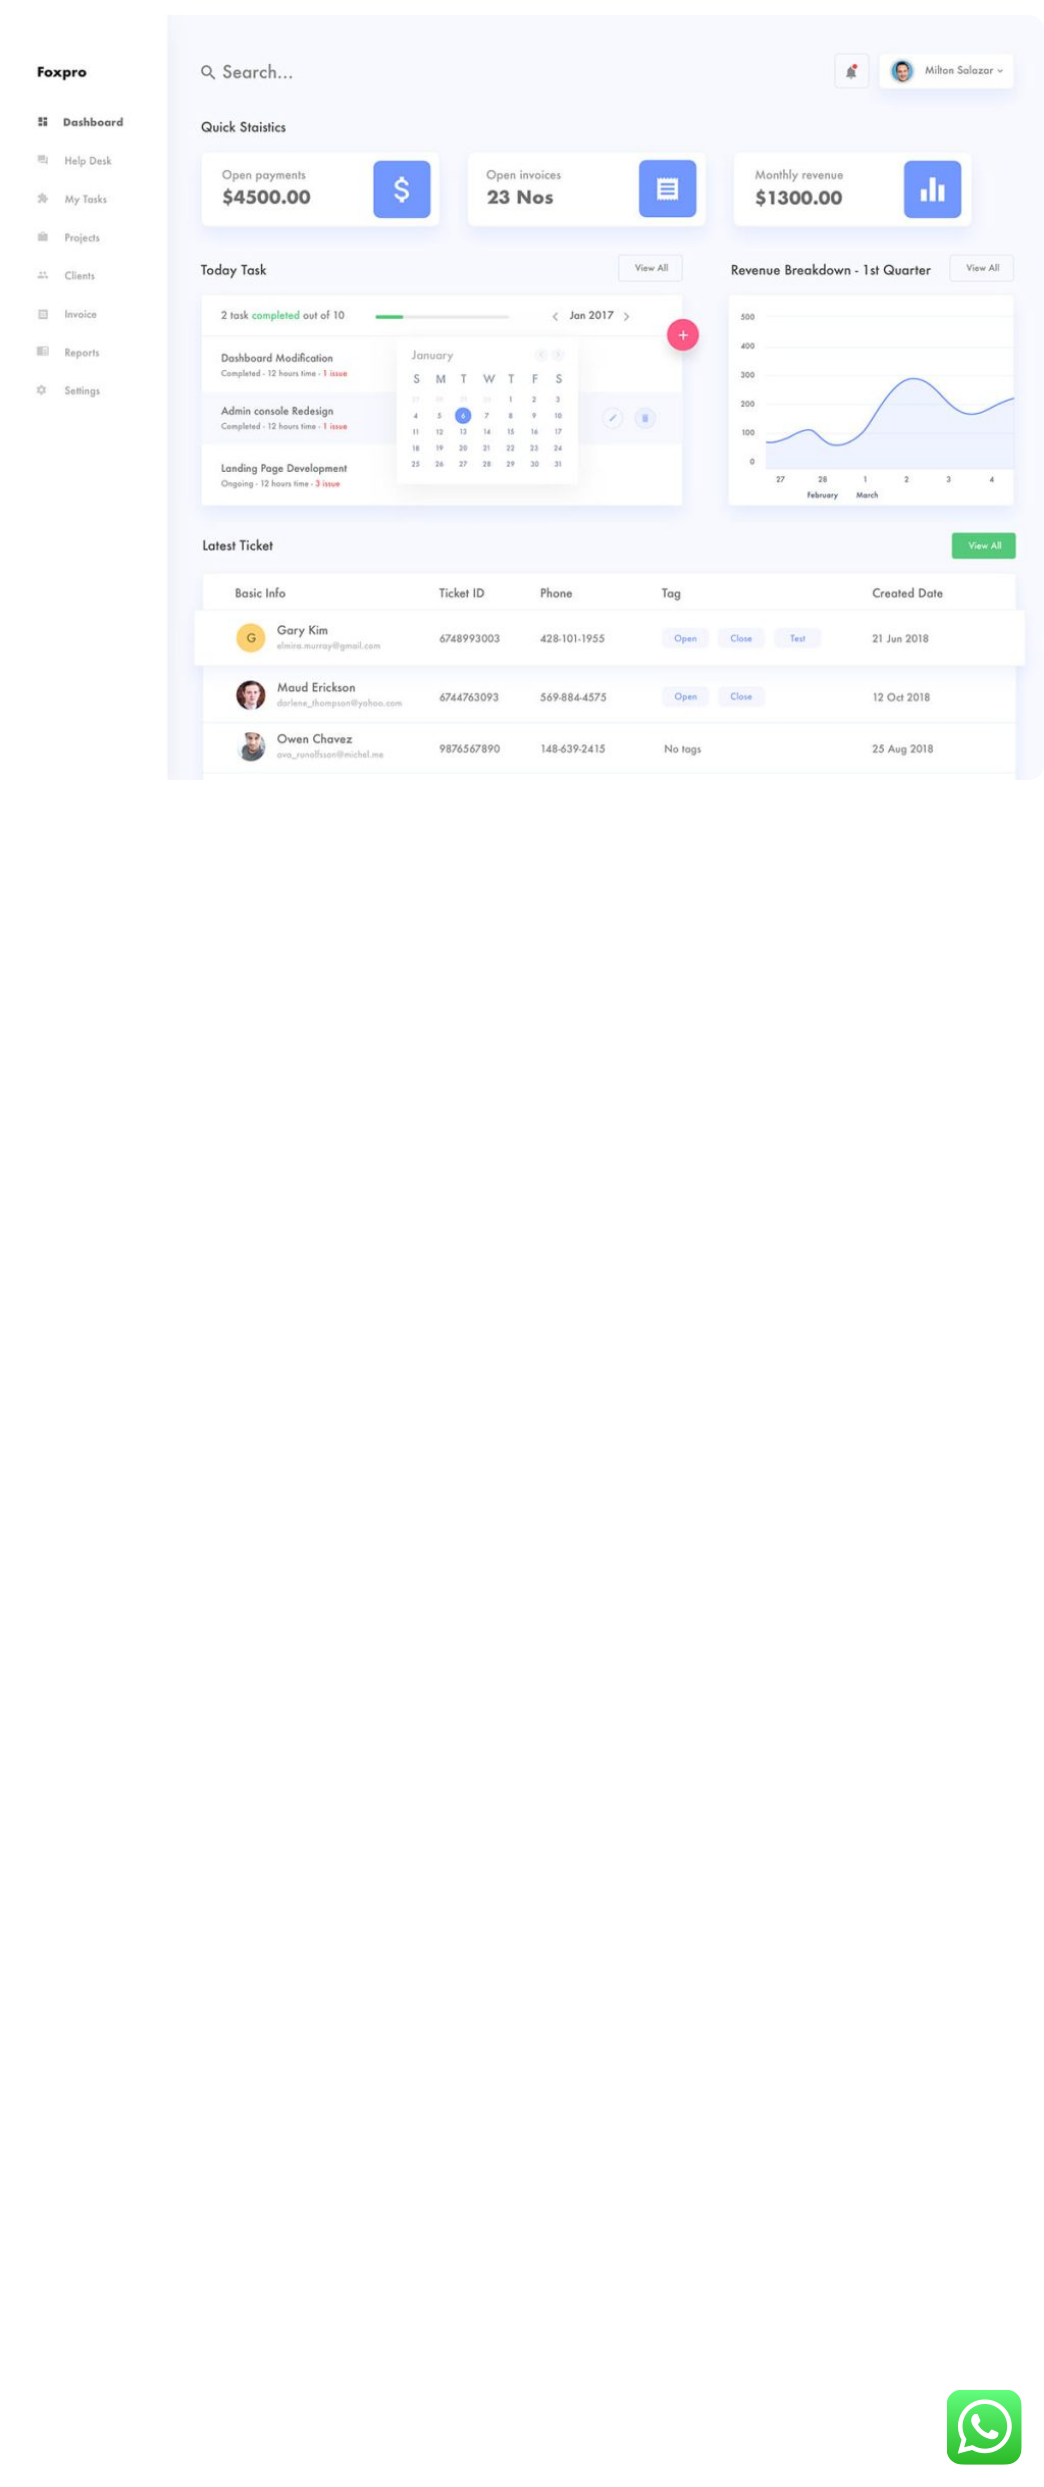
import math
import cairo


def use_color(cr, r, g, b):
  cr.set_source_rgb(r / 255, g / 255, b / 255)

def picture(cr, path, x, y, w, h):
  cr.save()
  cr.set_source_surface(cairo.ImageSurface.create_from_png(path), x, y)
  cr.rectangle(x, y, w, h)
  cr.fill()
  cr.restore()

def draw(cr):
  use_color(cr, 255, 255, 255)
  cr.paint()
  picture(cr, "img_01.png", 33, 15, 1011, 765)
  picture(cr, "img_02.png", 947, 2390, 75, 75)


surface = cairo.ImageSurface(cairo.FORMAT_RGB24, 1044, 2487)
cr = cairo.Context(surface)
options = cairo.FontOptions()
options.set_hint_metrics(cairo.HINT_METRICS_OFF)
options.set_hint_style(cairo.HINT_STYLE_NONE)
cr.set_font_options(options)
cr.set_miter_limit(4)
draw(cr)
surface.write_to_png("out.png")
